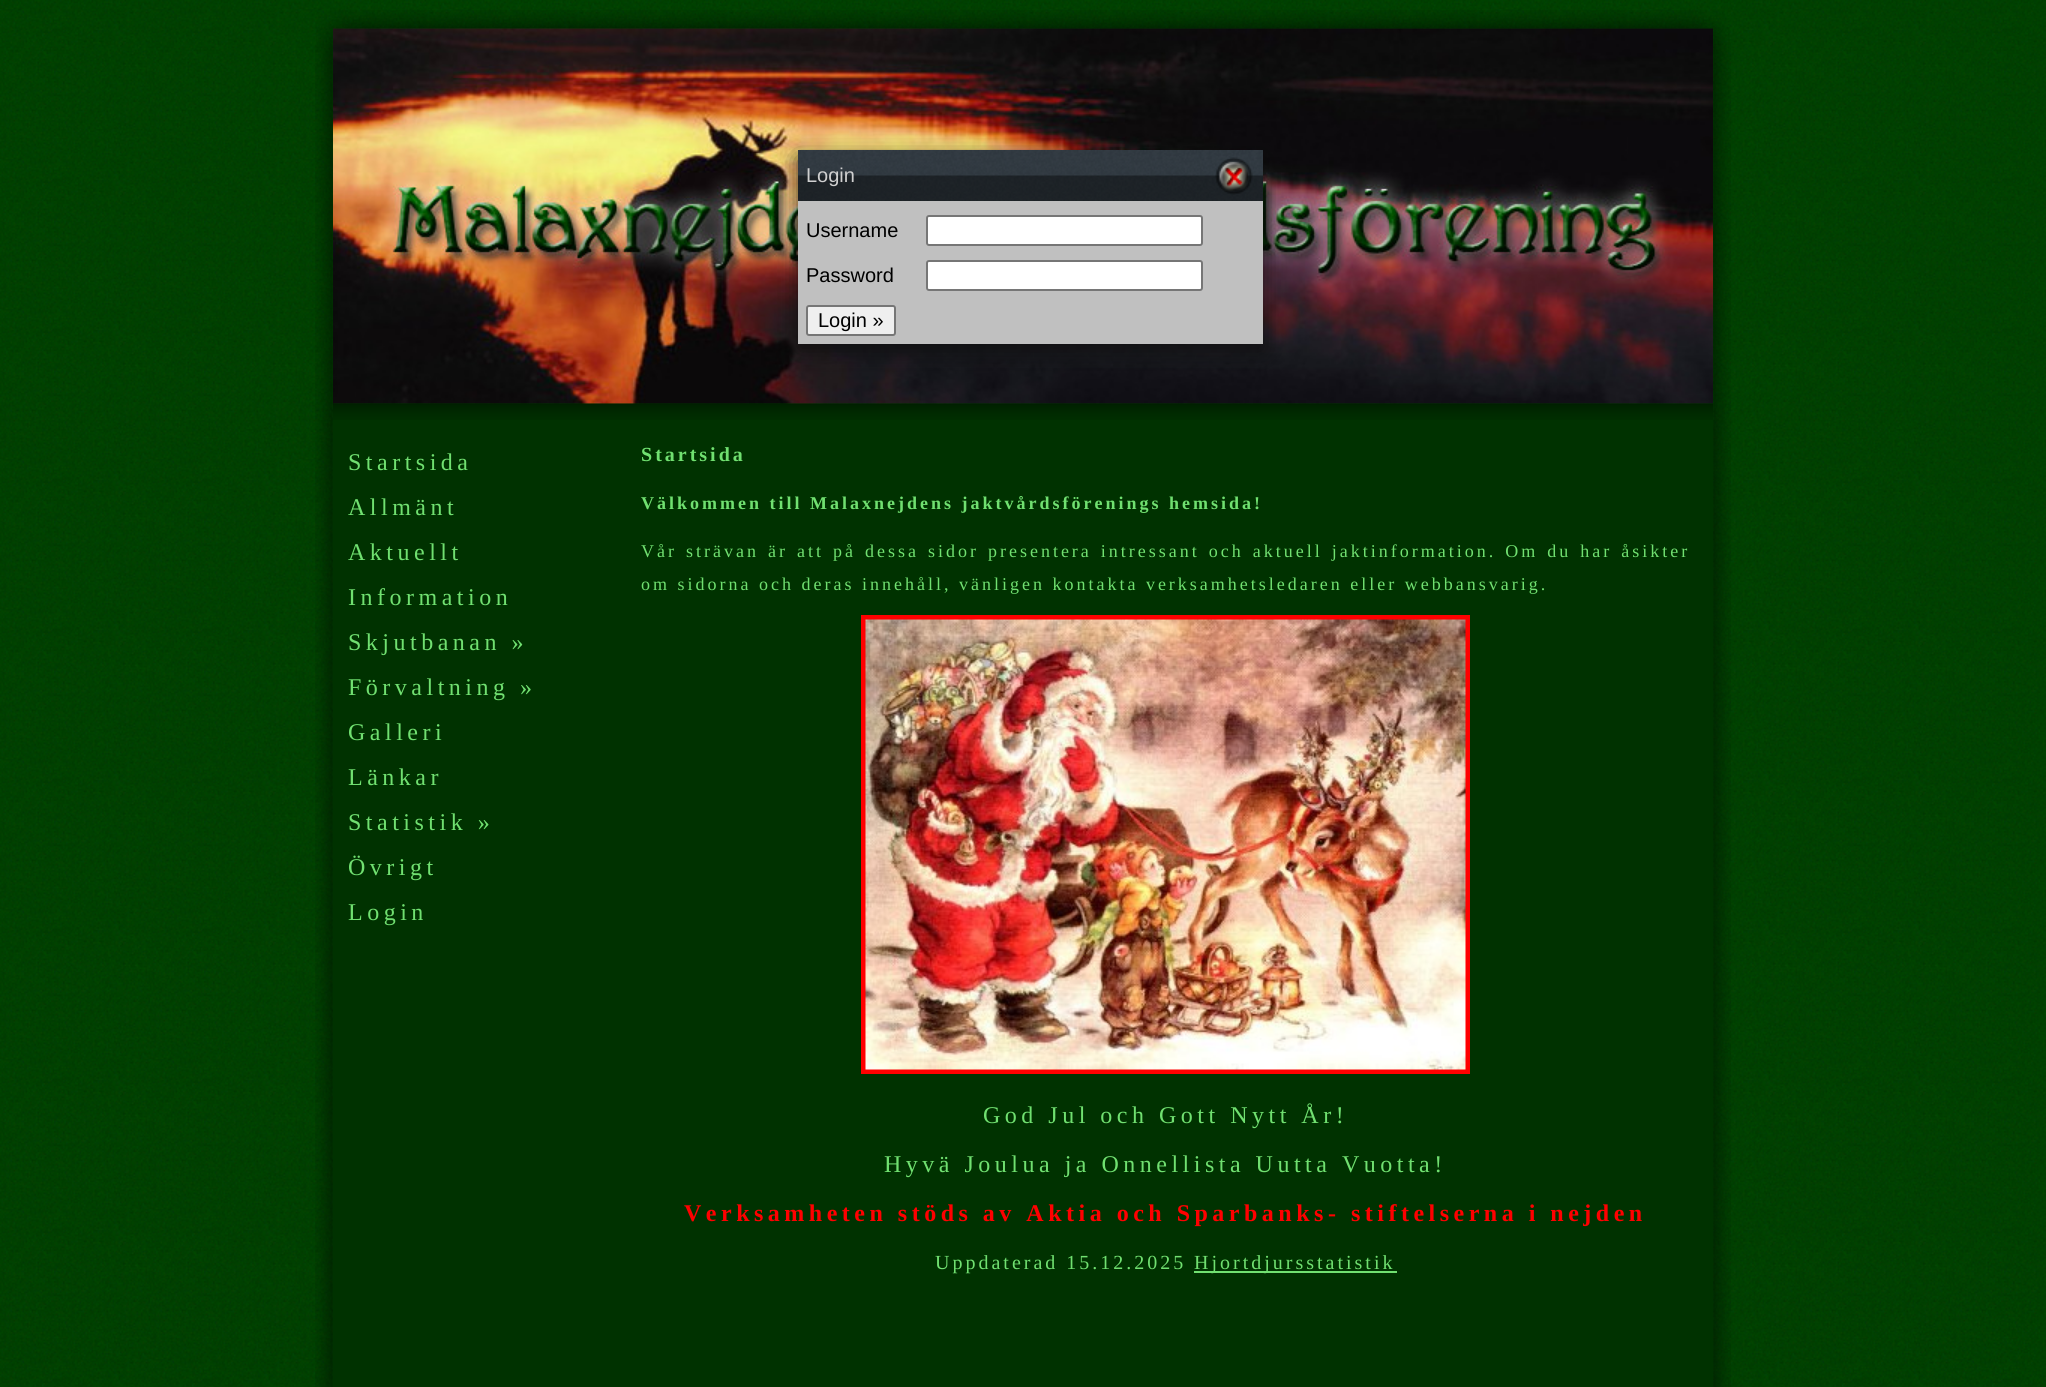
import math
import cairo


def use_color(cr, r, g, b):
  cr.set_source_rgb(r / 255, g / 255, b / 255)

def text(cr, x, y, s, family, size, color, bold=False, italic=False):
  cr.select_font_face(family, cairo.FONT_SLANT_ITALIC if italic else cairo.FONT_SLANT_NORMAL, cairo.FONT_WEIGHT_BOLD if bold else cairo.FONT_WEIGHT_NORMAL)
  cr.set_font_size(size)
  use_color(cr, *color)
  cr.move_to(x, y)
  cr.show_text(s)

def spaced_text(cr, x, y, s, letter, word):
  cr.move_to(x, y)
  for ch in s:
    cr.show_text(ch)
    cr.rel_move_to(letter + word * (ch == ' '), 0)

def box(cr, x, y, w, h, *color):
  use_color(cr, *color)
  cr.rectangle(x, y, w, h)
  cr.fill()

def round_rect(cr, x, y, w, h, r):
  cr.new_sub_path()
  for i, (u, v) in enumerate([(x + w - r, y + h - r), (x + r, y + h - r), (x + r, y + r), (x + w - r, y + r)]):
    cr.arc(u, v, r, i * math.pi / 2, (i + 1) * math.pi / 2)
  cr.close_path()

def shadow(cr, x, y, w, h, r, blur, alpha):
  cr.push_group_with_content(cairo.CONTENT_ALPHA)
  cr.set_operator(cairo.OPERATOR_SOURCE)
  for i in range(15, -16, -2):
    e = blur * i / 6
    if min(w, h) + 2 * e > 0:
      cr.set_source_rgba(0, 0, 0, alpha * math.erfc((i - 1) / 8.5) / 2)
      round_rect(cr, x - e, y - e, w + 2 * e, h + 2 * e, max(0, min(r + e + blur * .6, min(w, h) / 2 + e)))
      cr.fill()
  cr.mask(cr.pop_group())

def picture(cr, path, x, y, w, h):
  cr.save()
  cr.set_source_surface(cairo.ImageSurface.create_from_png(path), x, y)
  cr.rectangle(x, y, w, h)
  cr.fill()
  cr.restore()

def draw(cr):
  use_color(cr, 255, 255, 255)
  cr.paint()
  picture(cr, "img_01.png", 0, 0, 2046, 1387)
  picture(cr, "img_02.png", 316, 10, 1414, 34)
  picture(cr, "img_03.png", 315, 43, 1416, 1344)
  picture(cr, "img_04.png", 333, 28, 1380, 376)
  use_color(cr, 10, 10, 10)
  shadow(cr, 798, 158, 465, 193, 0, 11, 0.75)
  box(cr, 798, 201, 465, 143, 192, 192, 192)
  picture(cr, "img_05.png", 798, 150, 465, 51)
  picture(cr, "img_06.png", 1215, 157, 38, 38)
  use_color(cr, 255, 255, 255)
  round_rect(cr, 927, 216, 275, 29, 2)
  cr.fill_preserve()
  use_color(cr, 118, 118, 118)
  cr.stroke()
  use_color(cr, 255, 255, 255)
  round_rect(cr, 927, 261, 275, 29, 2)
  cr.fill_preserve()
  use_color(cr, 118, 118, 118)
  cr.stroke()
  use_color(cr, 239, 239, 239)
  round_rect(cr, 807, 306, 88, 29, 2)
  cr.fill_preserve()
  use_color(cr, 118, 118, 118)
  cr.stroke()
  box(cr, 333, 404, 1380, 983, 0, 50, 0)
  picture(cr, "img_07.png", 333, 403, 1380, 17)
  cr.rectangle(863.5, 617.5, 604, 454)
  use_color(cr, 255, 0, 0)
  cr.set_line_width(5)
  cr.stroke()
  picture(cr, "img_08.png", 865, 619, 601, 451)
  box(cr, 1194, 1271, 203, 2, 112, 224, 112)
  text(cr, 806, 182, "Login", "Liberation Sans", 20, (208, 208, 208))
  text(cr, 806, 237, "Username", "Liberation Sans", 20, (0, 0, 0))
  text(cr, 806, 282, "Password", "Liberation Sans", 20, (0, 0, 0))
  text(cr, 818, 327, "Login »", "Liberation Sans", 20, (0, 0, 0))
  cr.select_font_face("Liberation Serif")
  cr.set_font_size(24)
  use_color(cr, 112, 224, 112)
  spaced_text(cr, 348, 470, "Startsida", 4.5, 0)
  spaced_text(cr, 348, 515, "Allmänt", 4.5, 0)
  spaced_text(cr, 348, 560, "Aktuellt", 4.5, 0)
  spaced_text(cr, 348, 605, "Information", 4.5, 0)
  spaced_text(cr, 348, 650, "Skjutbanan »", 4.5, 0)
  spaced_text(cr, 348, 695, "Förvaltning »", 4.5, 0)
  spaced_text(cr, 348, 740, "Galleri", 4.5, 0)
  spaced_text(cr, 348, 785, "Länkar", 4.5, 0)
  spaced_text(cr, 348, 830, "Statistik »", 4.5, 0)
  spaced_text(cr, 348, 875, "Övrigt", 4.5, 0)
  spaced_text(cr, 348, 920, "Login", 4.5, 0)
  cr.select_font_face("Liberation Serif", cairo.FONT_SLANT_NORMAL, cairo.FONT_WEIGHT_BOLD)
  cr.set_font_size(20)
  spaced_text(cr, 641, 461, "Startsida", 3, 0)
  cr.set_font_size(18)
  spaced_text(cr, 641, 509, "Välkommen till Malaxnejdens jaktvårdsförenings hemsida!", 3, 0)
  cr.select_font_face("Liberation Serif")
  spaced_text(cr, 641, 557, "Vår strävan är att på dessa sidor presentera intressant och aktuell jaktinformation. Om du har åsikter", 3, 1.5)
  spaced_text(cr, 641, 590, "om sidorna och deras innehåll, vänligen kontakta verksamhetsledaren eller webbansvarig.", 3, 0)
  cr.set_font_size(24)
  spaced_text(cr, 983, 1123, "God Jul och Gott Nytt År!", 4.5, 0)
  spaced_text(cr, 884, 1172, "Hyvä Joulua ja Onnellista Uutta Vuotta!", 4.5, 0)
  cr.select_font_face("Liberation Serif", cairo.FONT_SLANT_NORMAL, cairo.FONT_WEIGHT_BOLD)
  use_color(cr, 255, 0, 0)
  spaced_text(cr, 684, 1221, "Verksamheten stöds av Aktia och Sparbanks- stiftelserna i nejden", 4.5, 0)
  cr.select_font_face("Liberation Serif")
  cr.set_font_size(20)
  use_color(cr, 112, 224, 112)
  spaced_text(cr, 935, 1269, "Uppdaterad 15.12.2025", 3, 0)
  spaced_text(cr, 1194, 1269, "Hjortdjursstatistik", 3, 0)


surface = cairo.ImageSurface(cairo.FORMAT_RGB24, 2046, 1387)
cr = cairo.Context(surface)
options = cairo.FontOptions()
options.set_hint_metrics(cairo.HINT_METRICS_OFF)
options.set_hint_style(cairo.HINT_STYLE_NONE)
cr.set_font_options(options)
cr.set_miter_limit(4)
draw(cr)
surface.write_to_png("out.png")
